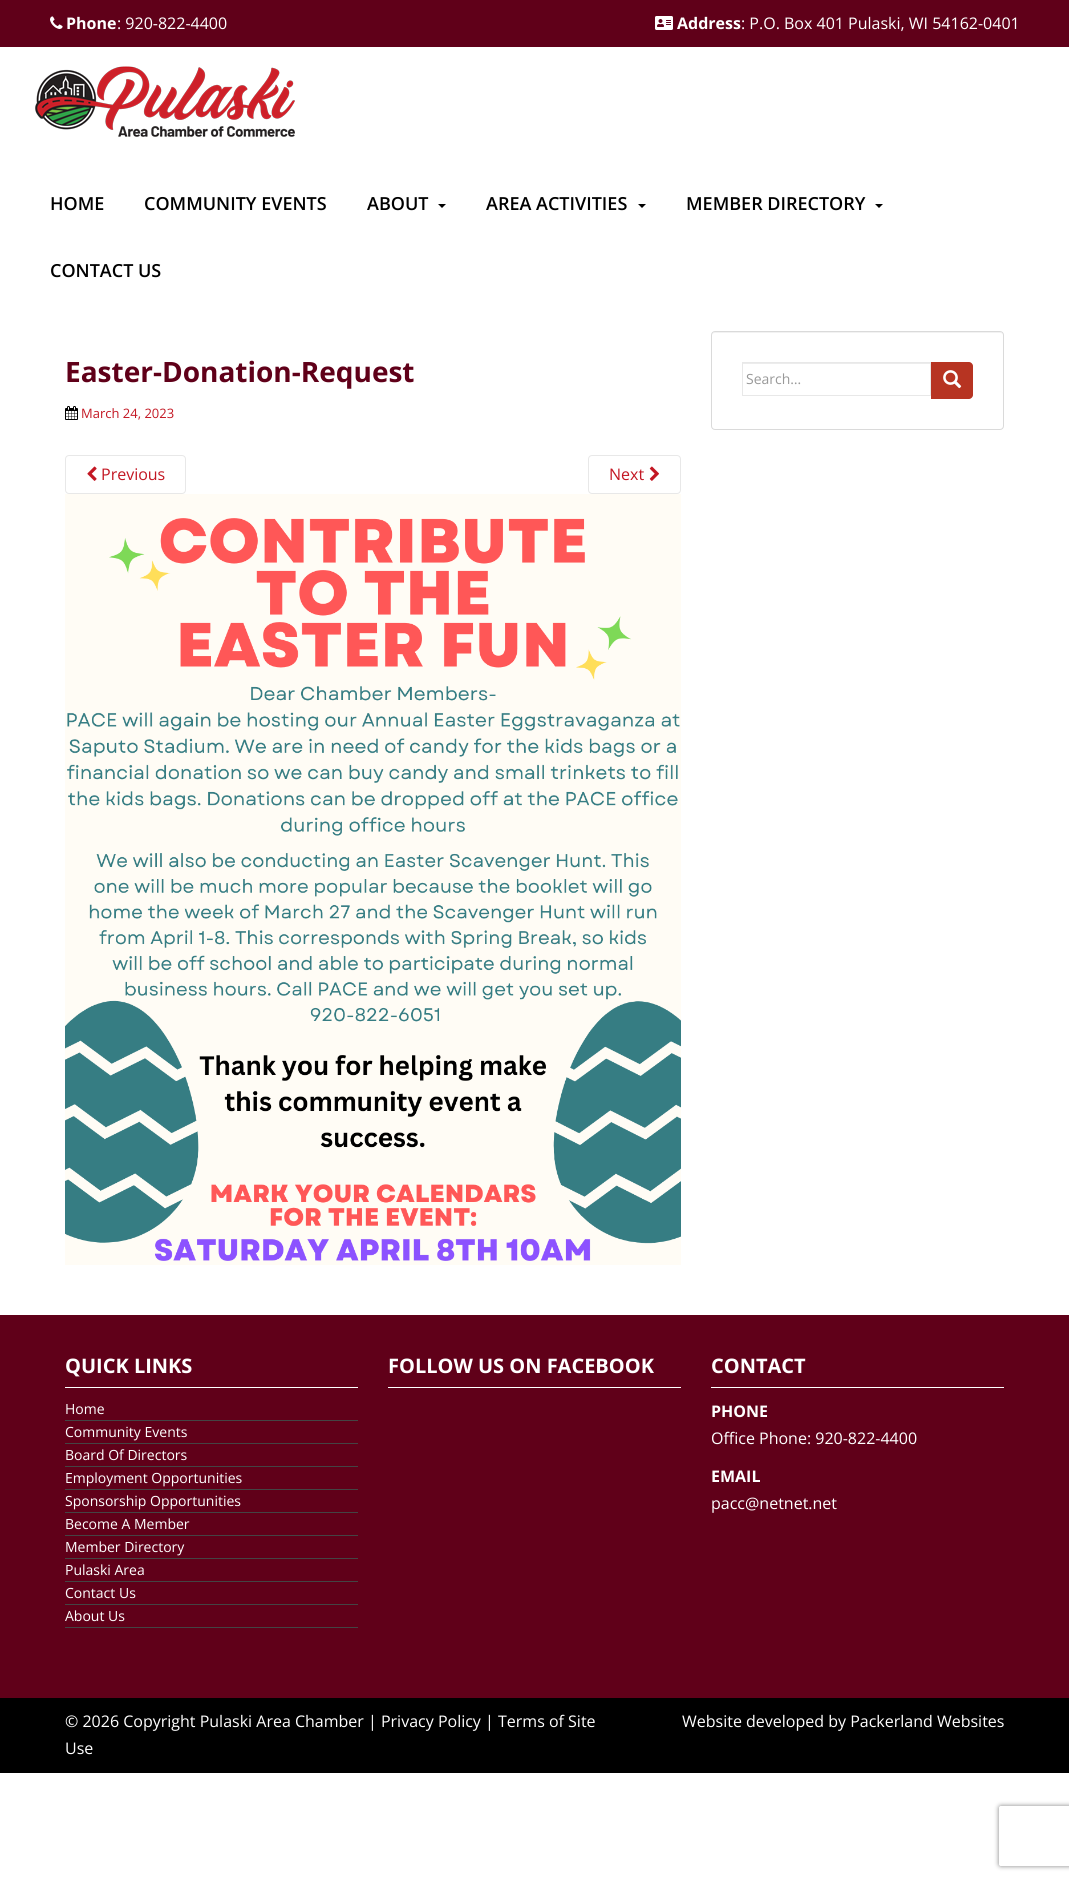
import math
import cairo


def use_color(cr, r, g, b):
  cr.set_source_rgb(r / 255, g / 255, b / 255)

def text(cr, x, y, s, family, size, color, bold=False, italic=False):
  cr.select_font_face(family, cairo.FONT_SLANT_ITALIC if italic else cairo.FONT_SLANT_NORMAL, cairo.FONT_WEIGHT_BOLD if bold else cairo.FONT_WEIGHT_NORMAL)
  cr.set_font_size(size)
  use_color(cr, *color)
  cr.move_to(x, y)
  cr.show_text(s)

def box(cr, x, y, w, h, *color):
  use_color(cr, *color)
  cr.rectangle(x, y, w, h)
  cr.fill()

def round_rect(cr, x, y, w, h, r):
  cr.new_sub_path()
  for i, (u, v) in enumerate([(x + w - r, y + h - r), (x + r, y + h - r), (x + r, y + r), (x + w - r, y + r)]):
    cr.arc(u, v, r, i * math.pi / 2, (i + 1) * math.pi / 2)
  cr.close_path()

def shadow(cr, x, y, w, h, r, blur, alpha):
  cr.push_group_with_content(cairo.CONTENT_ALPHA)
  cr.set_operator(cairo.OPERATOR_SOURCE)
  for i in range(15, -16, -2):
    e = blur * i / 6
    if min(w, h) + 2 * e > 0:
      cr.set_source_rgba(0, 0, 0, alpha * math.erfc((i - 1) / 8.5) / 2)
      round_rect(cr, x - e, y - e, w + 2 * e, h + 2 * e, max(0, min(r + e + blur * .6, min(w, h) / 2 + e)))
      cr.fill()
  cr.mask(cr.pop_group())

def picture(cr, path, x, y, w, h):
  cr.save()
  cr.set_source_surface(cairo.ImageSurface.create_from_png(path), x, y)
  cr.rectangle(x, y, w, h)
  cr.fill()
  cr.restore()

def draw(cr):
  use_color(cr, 255, 255, 255)
  cr.paint()
  box(cr, 0, 0, 1069, 47, 96, 0, 25)
  picture(cr, "img_01.png", 50, 16, 13, 13)
  picture(cr, "img_02.png", 655, 16, 18, 14)
  picture(cr, "img_03.png", 35, 66, 260, 71)
  use_color(cr, 0, 0, 0)
  cr.new_path()
  cr.move_to(438, 204)
  cr.line_to(446, 204)
  cr.line_to(442, 208)
  cr.close_path()
  cr.fill()
  cr.new_path()
  cr.move_to(638, 204)
  cr.line_to(646, 204)
  cr.line_to(642, 208)
  cr.close_path()
  cr.fill()
  cr.new_path()
  cr.move_to(875, 204)
  cr.line_to(883, 204)
  cr.line_to(879, 208)
  cr.close_path()
  cr.fill()
  picture(cr, "img_04.png", 65, 406, 13, 14)
  round_rect(cr, 65.5, 455.5, 120, 38, 3.5)
  use_color(cr, 232, 232, 232)
  cr.set_line_width(1)
  cr.stroke()
  picture(cr, "img_05.png", 87, 466, 10, 15)
  round_rect(cr, 588.5, 455.5, 92, 38, 3.5)
  cr.stroke()
  picture(cr, "img_06.png", 649, 466, 10, 15)
  picture(cr, "img_07.png", 65, 494, 616, 771)
  use_color(cr, 242, 242, 242)
  cr.new_path()
  cr.move_to(715, 333)
  cr.line_to(1000, 333)
  cr.curve_to(1002, 333, 1003, 334, 1003, 336)
  cr.curve_to(1003, 334, 1002, 332, 1000, 332)
  cr.line_to(715, 332)
  cr.curve_to(713, 332, 712, 334, 712, 336)
  cr.curve_to(712, 334, 713, 333, 715, 333)
  cr.close_path()
  cr.fill()
  round_rect(cr, 711.5, 331.5, 292, 98, 3.5)
  use_color(cr, 218, 218, 218)
  cr.stroke()
  box(cr, 743, 363, 187, 1, 236, 236, 236)
  cr.rectangle(742.5, 362.5, 188, 33)
  use_color(cr, 232, 232, 232)
  cr.stroke()
  use_color(cr, 183, 52, 34)
  cr.new_path()
  cr.move_to(931, 362)
  cr.line_to(969, 362)
  cr.curve_to(971, 362, 973, 364, 973, 366)
  cr.line_to(973, 395)
  cr.curve_to(973, 397, 971, 399, 969, 399)
  cr.line_to(931, 399)
  cr.close_path()
  cr.fill()
  picture(cr, "img_08.png", 943, 370, 19, 19)
  box(cr, 0, 1315, 1069, 383, 96, 0, 25)
  box(cr, 65, 1387, 293, 1, 255, 255, 255)
  box(cr, 65, 1420, 293, 1, 68, 68, 68)
  box(cr, 65, 1443, 293, 1, 68, 68, 68)
  box(cr, 65, 1466, 293, 1, 68, 68, 68)
  box(cr, 65, 1489, 293, 1, 68, 68, 68)
  box(cr, 65, 1512, 293, 1, 68, 68, 68)
  box(cr, 65, 1535, 293, 1, 68, 68, 68)
  box(cr, 65, 1558, 293, 1, 68, 68, 68)
  box(cr, 65, 1581, 293, 1, 68, 68, 68)
  box(cr, 65, 1604, 293, 1, 68, 68, 68)
  box(cr, 65, 1627, 293, 1, 68, 68, 68)
  box(cr, 388, 1387, 293, 1, 255, 255, 255)
  box(cr, 711, 1387, 293, 1, 255, 255, 255)
  box(cr, 0, 1698, 1069, 75, 0, 0, 0)
  cr.save()
  cr.set_fill_rule(cairo.FILL_RULE_EVEN_ODD)
  cr.new_path()
  cr.move_to(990, 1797)
  cr.line_to(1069, 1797)
  cr.line_to(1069, 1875)
  cr.line_to(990, 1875)
  cr.close_path()
  cr.move_to(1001, 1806)
  cr.line_to(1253, 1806)
  cr.curve_to(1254, 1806, 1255, 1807, 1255, 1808)
  cr.line_to(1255, 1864)
  cr.curve_to(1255, 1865, 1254, 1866, 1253, 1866)
  cr.line_to(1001, 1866)
  cr.curve_to(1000, 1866, 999, 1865, 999, 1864)
  cr.line_to(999, 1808)
  cr.curve_to(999, 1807, 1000, 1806, 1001, 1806)
  cr.close_path()
  cr.clip()
  use_color(cr, 128, 128, 128)
  shadow(cr, 999, 1806, 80, 60, 2, 2.5, 1)
  cr.restore()
  text(cr, 66, 29, "Phone", "Open Sans", 16, (255, 255, 255), bold=True)
  text(cr, 117, 29, ": 920-822-4400", "Open Sans", 16, (255, 255, 255))
  text(cr, 677, 29, "Address", "Open Sans", 16, (255, 255, 255), bold=True)
  text(cr, 741, 29, ": P.O. Box 401 Pulaski, WI 54162-0401", "Open Sans", 16, (255, 255, 255))
  text(cr, 50, 210, "HOME", "Open Sans SemiBold", 18, (0, 0, 0))
  text(cr, 144, 210, "COMMUNITY EVENTS", "Open Sans SemiBold", 18, (0, 0, 0))
  text(cr, 367, 210, "ABOUT", "Open Sans SemiBold", 18, (0, 0, 0))
  text(cr, 486, 210, "AREA ACTIVITIES", "Open Sans SemiBold", 18, (0, 0, 0))
  text(cr, 686, 210, "MEMBER DIRECTORY", "Open Sans SemiBold", 18, (0, 0, 0))
  text(cr, 50, 277, "CONTACT US", "Open Sans SemiBold", 18, (0, 0, 0))
  text(cr, 65, 382, "Easter-Donation-Request", "Open Sans", 28, (96, 0, 25), bold=True)
  text(cr, 81, 418, "March 24, 2023", "Open Sans", 13, (195, 23, 35))
  text(cr, 101, 480, "Previous", "Open Sans", 16, (195, 23, 35))
  text(cr, 609, 480, "Next", "Open Sans", 16, (195, 23, 35))
  text(cr, 746, 384, "Search…", "Open Sans", 14, (153, 153, 153))
  text(cr, 65, 1373, "QUICK LINKS", "Open Sans", 20, (255, 255, 255), bold=True)
  text(cr, 65, 1414, "Home", "Open Sans", 14, (255, 255, 255))
  text(cr, 65, 1437, "Community Events", "Open Sans", 14, (255, 255, 255))
  text(cr, 65, 1460, "Board Of Directors", "Open Sans", 14, (255, 255, 255))
  text(cr, 65, 1483, "Employment Opportunities", "Open Sans", 14, (255, 255, 255))
  text(cr, 65, 1506, "Sponsorship Opportunities", "Open Sans", 14, (255, 255, 255))
  text(cr, 65, 1529, "Become A Member", "Open Sans", 14, (255, 255, 255))
  text(cr, 65, 1552, "Member Directory", "Open Sans", 14, (255, 255, 255))
  text(cr, 65, 1575, "Pulaski Area", "Open Sans", 14, (255, 255, 255))
  text(cr, 65, 1598, "Contact Us", "Open Sans", 14, (255, 255, 255))
  text(cr, 65, 1621, "About Us", "Open Sans", 14, (255, 255, 255))
  text(cr, 388, 1373, "FOLLOW US ON FACEBOOK", "Open Sans", 20, (255, 255, 255), bold=True)
  text(cr, 711, 1373, "CONTACT", "Open Sans", 20, (255, 255, 255), bold=True)
  text(cr, 711, 1417, "PHONE", "Open Sans", 16, (255, 255, 255), bold=True)
  text(cr, 711, 1444, "Office Phone: 920-822-4400", "Open Sans", 16, (255, 255, 255))
  text(cr, 711, 1482, "EMAIL", "Open Sans", 16, (255, 255, 255), bold=True)
  text(cr, 711, 1509, "pacc@netnet.net", "Open Sans", 16, (255, 255, 255))
  text(cr, 65, 1727, "© 2026 Copyright Pulaski Area Chamber | Privacy Policy | Terms of Site", "Open Sans", 16, (255, 255, 255))
  text(cr, 65, 1754, "Use", "Open Sans", 16, (255, 255, 255))
  text(cr, 682, 1727, "Website developed by Packerland Websites", "Open Sans", 16, (255, 255, 255))


surface = cairo.ImageSurface(cairo.FORMAT_RGB24, 1069, 1880)
cr = cairo.Context(surface)
options = cairo.FontOptions()
options.set_hint_metrics(cairo.HINT_METRICS_OFF)
options.set_hint_style(cairo.HINT_STYLE_NONE)
cr.set_font_options(options)
cr.set_miter_limit(4)
draw(cr)
surface.write_to_png("out.png")
